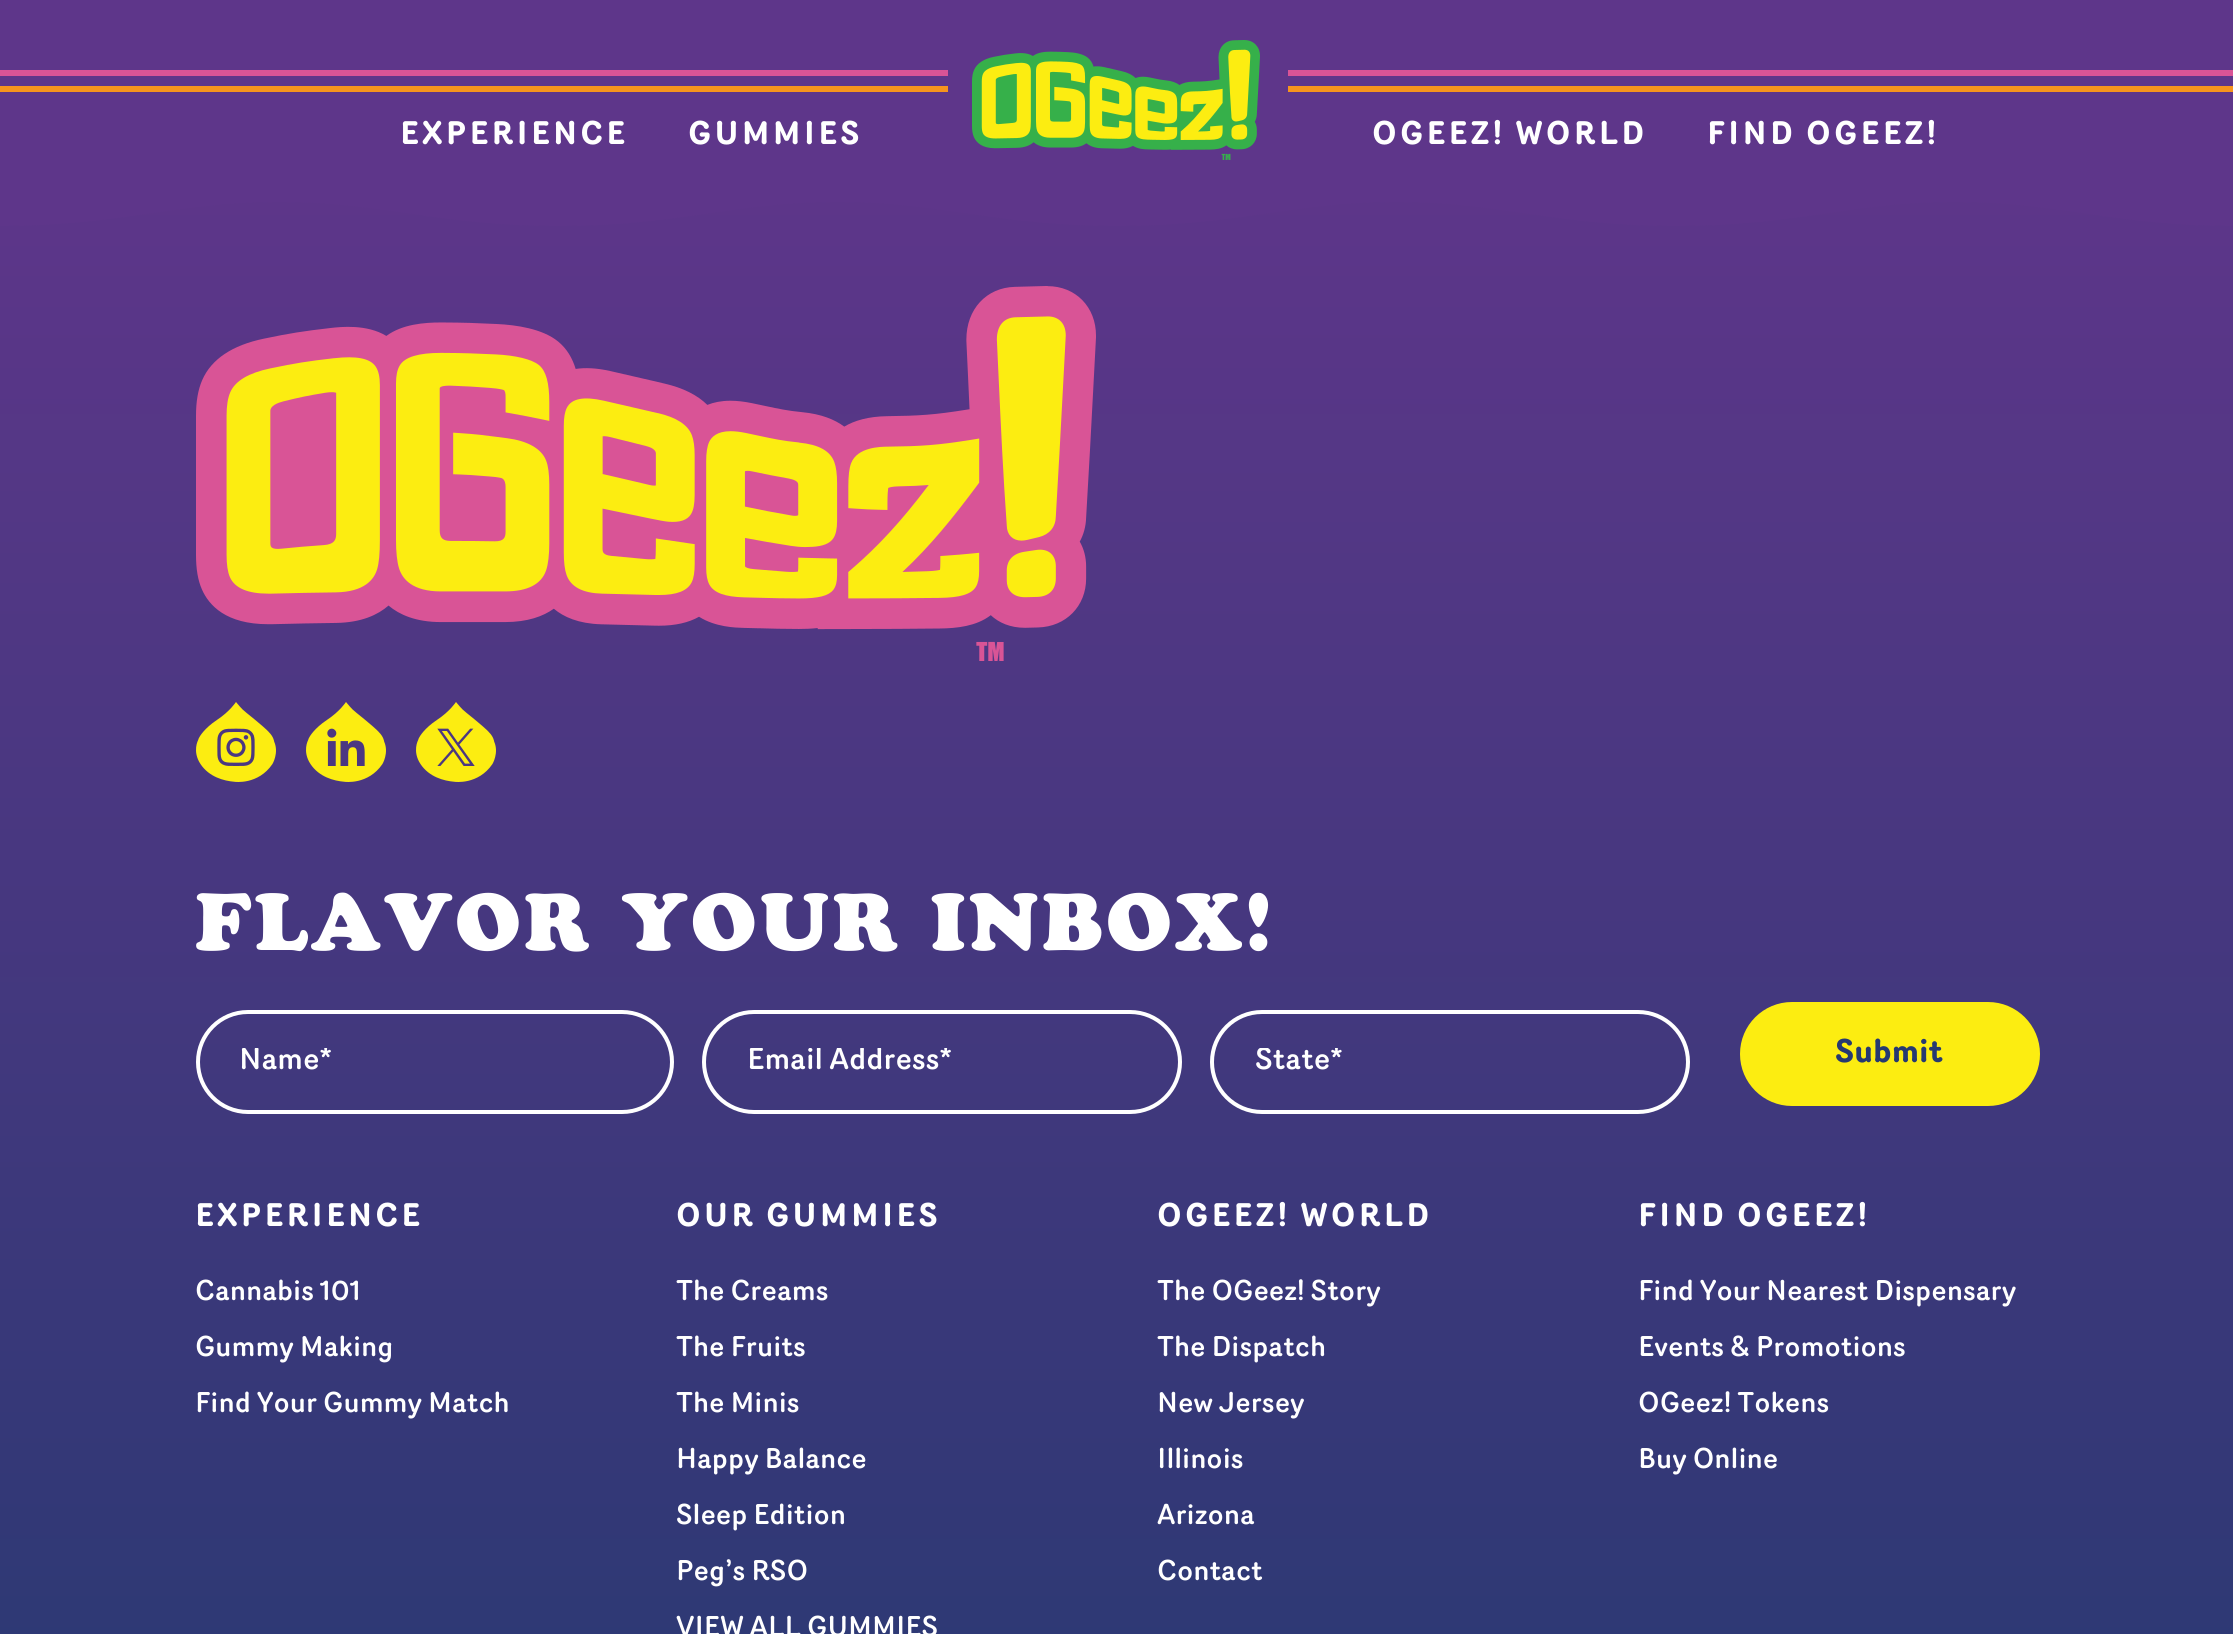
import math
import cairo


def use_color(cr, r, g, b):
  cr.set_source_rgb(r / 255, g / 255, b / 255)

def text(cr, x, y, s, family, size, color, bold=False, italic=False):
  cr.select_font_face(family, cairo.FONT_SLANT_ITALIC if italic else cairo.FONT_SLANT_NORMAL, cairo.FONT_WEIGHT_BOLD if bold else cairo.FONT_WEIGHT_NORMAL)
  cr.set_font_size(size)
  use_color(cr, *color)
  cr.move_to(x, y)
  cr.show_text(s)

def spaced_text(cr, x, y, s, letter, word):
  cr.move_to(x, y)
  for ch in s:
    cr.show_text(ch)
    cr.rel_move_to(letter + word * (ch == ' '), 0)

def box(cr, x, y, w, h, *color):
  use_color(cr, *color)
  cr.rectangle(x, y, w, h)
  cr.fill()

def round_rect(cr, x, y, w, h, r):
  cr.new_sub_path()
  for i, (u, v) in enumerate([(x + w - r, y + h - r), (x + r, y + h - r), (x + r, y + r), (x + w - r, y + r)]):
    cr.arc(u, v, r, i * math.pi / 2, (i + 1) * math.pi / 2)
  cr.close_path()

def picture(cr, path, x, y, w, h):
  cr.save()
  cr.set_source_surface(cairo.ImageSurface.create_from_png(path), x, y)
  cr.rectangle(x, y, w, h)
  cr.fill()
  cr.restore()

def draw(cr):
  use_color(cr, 255, 255, 255)
  cr.paint()
  box(cr, 0, 0, 2233, 200, 94, 54, 138)
  box(cr, 0, 70, 948, 6, 217, 84, 150)
  box(cr, 0, 86, 948, 6, 247, 148, 29)
  box(cr, 1288, 70, 945, 6, 217, 84, 150)
  box(cr, 1288, 86, 945, 6, 247, 148, 29)
  picture(cr, "img_01.png", 972, 40, 288, 120)
  gradient = cairo.LinearGradient(1117, 166, 1117, 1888)
  gradient.add_color_stop_rgba(0, 0.369, 0.212, 0.541, 1)
  gradient.add_color_stop_rgba(1, 0.149, 0.224, 0.443, 1)
  cr.set_source(gradient)
  cr.rectangle(0, 202, 2233, 1432)
  cr.fill()
  use_color(cr, 94, 54, 138)
  cr.new_path()
  cr.move_to(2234, 226)
  cr.curve_to(2112, 226, 2060, 202, 1955, 202)
  cr.curve_to(1850, 202, 1798, 226, 1676, 226)
  cr.curve_to(1553, 226, 1501, 202, 1396, 202)
  cr.curve_to(1292, 202, 1239, 226, 1117, 226)
  cr.curve_to(995, 226, 942, 202, 838, 202)
  cr.curve_to(733, 202, 681, 226, 558, 226)
  cr.curve_to(436, 226, 384, 202, 279, 202)
  cr.curve_to(175, 202, 122, 226, 0, 226)
  cr.line_to(0, 200)
  cr.line_to(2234, 200)
  cr.close_path()
  cr.fill()
  picture(cr, "img_02.png", 196, 286, 900, 375)
  picture(cr, "img_03.png", 196, 702, 80, 80)
  picture(cr, "img_04.png", 306, 702, 80, 80)
  picture(cr, "img_05.png", 416, 702, 80, 80)
  round_rect(cr, 198, 1012, 474, 100, 50)
  use_color(cr, 255, 255, 255)
  cr.set_line_width(4)
  cr.stroke()
  round_rect(cr, 704, 1012, 476, 100, 50)
  cr.stroke()
  round_rect(cr, 1212, 1012, 476, 100, 50)
  cr.stroke()
  use_color(cr, 252, 237, 17)
  round_rect(cr, 1741, 1003, 298, 102, 51)
  cr.fill_preserve()
  cr.set_line_width(2)
  cr.stroke()
  cr.select_font_face("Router", cairo.FONT_SLANT_NORMAL, cairo.FONT_WEIGHT_BOLD)
  cr.set_font_size(32)
  use_color(cr, 255, 255, 255)
  spaced_text(cr, 400, 144, "EXPERIENCE", 3.25, 0)
  spaced_text(cr, 688, 144, "GUMMIES", 3.25, 0)
  spaced_text(cr, 1372, 144, "OGEEZ! WORLD", 3.25, 0)
  spaced_text(cr, 1707, 144, "FIND OGEEZ!", 3.25, 0)
  cr.select_font_face("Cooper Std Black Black")
  cr.set_font_size(80)
  spaced_text(cr, 195, 950, "FLAVOR YOUR INBOX!", 3.6, 0)
  cr.save()
  cr.rectangle(240, 1048, 390, 30)
  cr.clip()
  text(cr, 239, 1069, "Name*", "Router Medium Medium", 30, (255, 255, 255))
  cr.restore()
  cr.save()
  cr.rectangle(746, 1048, 392, 30)
  cr.clip()
  text(cr, 747, 1069, "Email Address*", "Router Medium Medium", 30, (255, 255, 255))
  cr.restore()
  cr.save()
  cr.rectangle(1254, 1048, 392, 30)
  cr.clip()
  text(cr, 1255, 1069, "State*", "Router Medium Medium", 30, (255, 255, 255))
  cr.restore()
  text(cr, 1835, 1062, "Submit", "Router", 32, (38, 57, 113), bold=True)
  use_color(cr, 255, 255, 255)
  spaced_text(cr, 195, 1226, "EXPERIENCE", 3.25, 0)
  text(cr, 195, 1300, "Cannabis 101", "Router Medium Medium", 28, (255, 255, 255))
  text(cr, 195, 1356, "Gummy Making", "Router Medium Medium", 28, (255, 255, 255))
  text(cr, 195, 1412, "Find Your Gummy Match", "Router Medium Medium", 28, (255, 255, 255))
  cr.select_font_face("Router", cairo.FONT_SLANT_NORMAL, cairo.FONT_WEIGHT_BOLD)
  cr.set_font_size(32)
  spaced_text(cr, 676, 1226, "OUR GUMMIES", 3.25, 0)
  text(cr, 676, 1300, "The Creams", "Router Medium Medium", 28, (255, 255, 255))
  text(cr, 676, 1356, "The Fruits", "Router Medium Medium", 28, (255, 255, 255))
  text(cr, 676, 1412, "The Minis", "Router Medium Medium", 28, (255, 255, 255))
  text(cr, 676, 1468, "Happy Balance", "Router Medium Medium", 28, (255, 255, 255))
  text(cr, 676, 1524, "Sleep Edition", "Router Medium Medium", 28, (255, 255, 255))
  text(cr, 676, 1580, "Peg’s RSO", "Router Medium Medium", 28, (255, 255, 255))
  text(cr, 676, 1636, "VIEW ALL GUMMIES", "Router Medium Medium", 28, (255, 255, 255))
  cr.select_font_face("Router", cairo.FONT_SLANT_NORMAL, cairo.FONT_WEIGHT_BOLD)
  cr.set_font_size(32)
  spaced_text(cr, 1157, 1226, "OGEEZ! WORLD", 3.25, 0)
  text(cr, 1157, 1300, "The OGeez! Story", "Router Medium Medium", 28, (255, 255, 255))
  text(cr, 1157, 1356, "The Dispatch", "Router Medium Medium", 28, (255, 255, 255))
  text(cr, 1157, 1412, "New Jersey", "Router Medium Medium", 28, (255, 255, 255))
  text(cr, 1157, 1468, "Illinois", "Router Medium Medium", 28, (255, 255, 255))
  text(cr, 1157, 1524, "Arizona", "Router Medium Medium", 28, (255, 255, 255))
  text(cr, 1157, 1580, "Contact", "Router Medium Medium", 28, (255, 255, 255))
  cr.select_font_face("Router", cairo.FONT_SLANT_NORMAL, cairo.FONT_WEIGHT_BOLD)
  cr.set_font_size(32)
  spaced_text(cr, 1638, 1226, "FIND OGEEZ!", 3.25, 0)
  text(cr, 1638, 1300, "Find Your Nearest Dispensary", "Router Medium Medium", 28, (255, 255, 255))
  text(cr, 1638, 1356, "Events & Promotions", "Router Medium Medium", 28, (255, 255, 255))
  text(cr, 1638, 1412, "OGeez! Tokens", "Router Medium Medium", 28, (255, 255, 255))
  text(cr, 1638, 1468, "Buy Online", "Router Medium Medium", 28, (255, 255, 255))


surface = cairo.ImageSurface(cairo.FORMAT_RGB24, 2233, 1634)
cr = cairo.Context(surface)
options = cairo.FontOptions()
options.set_hint_metrics(cairo.HINT_METRICS_OFF)
options.set_hint_style(cairo.HINT_STYLE_NONE)
cr.set_font_options(options)
cr.set_miter_limit(4)
draw(cr)
surface.write_to_png("out.png")
